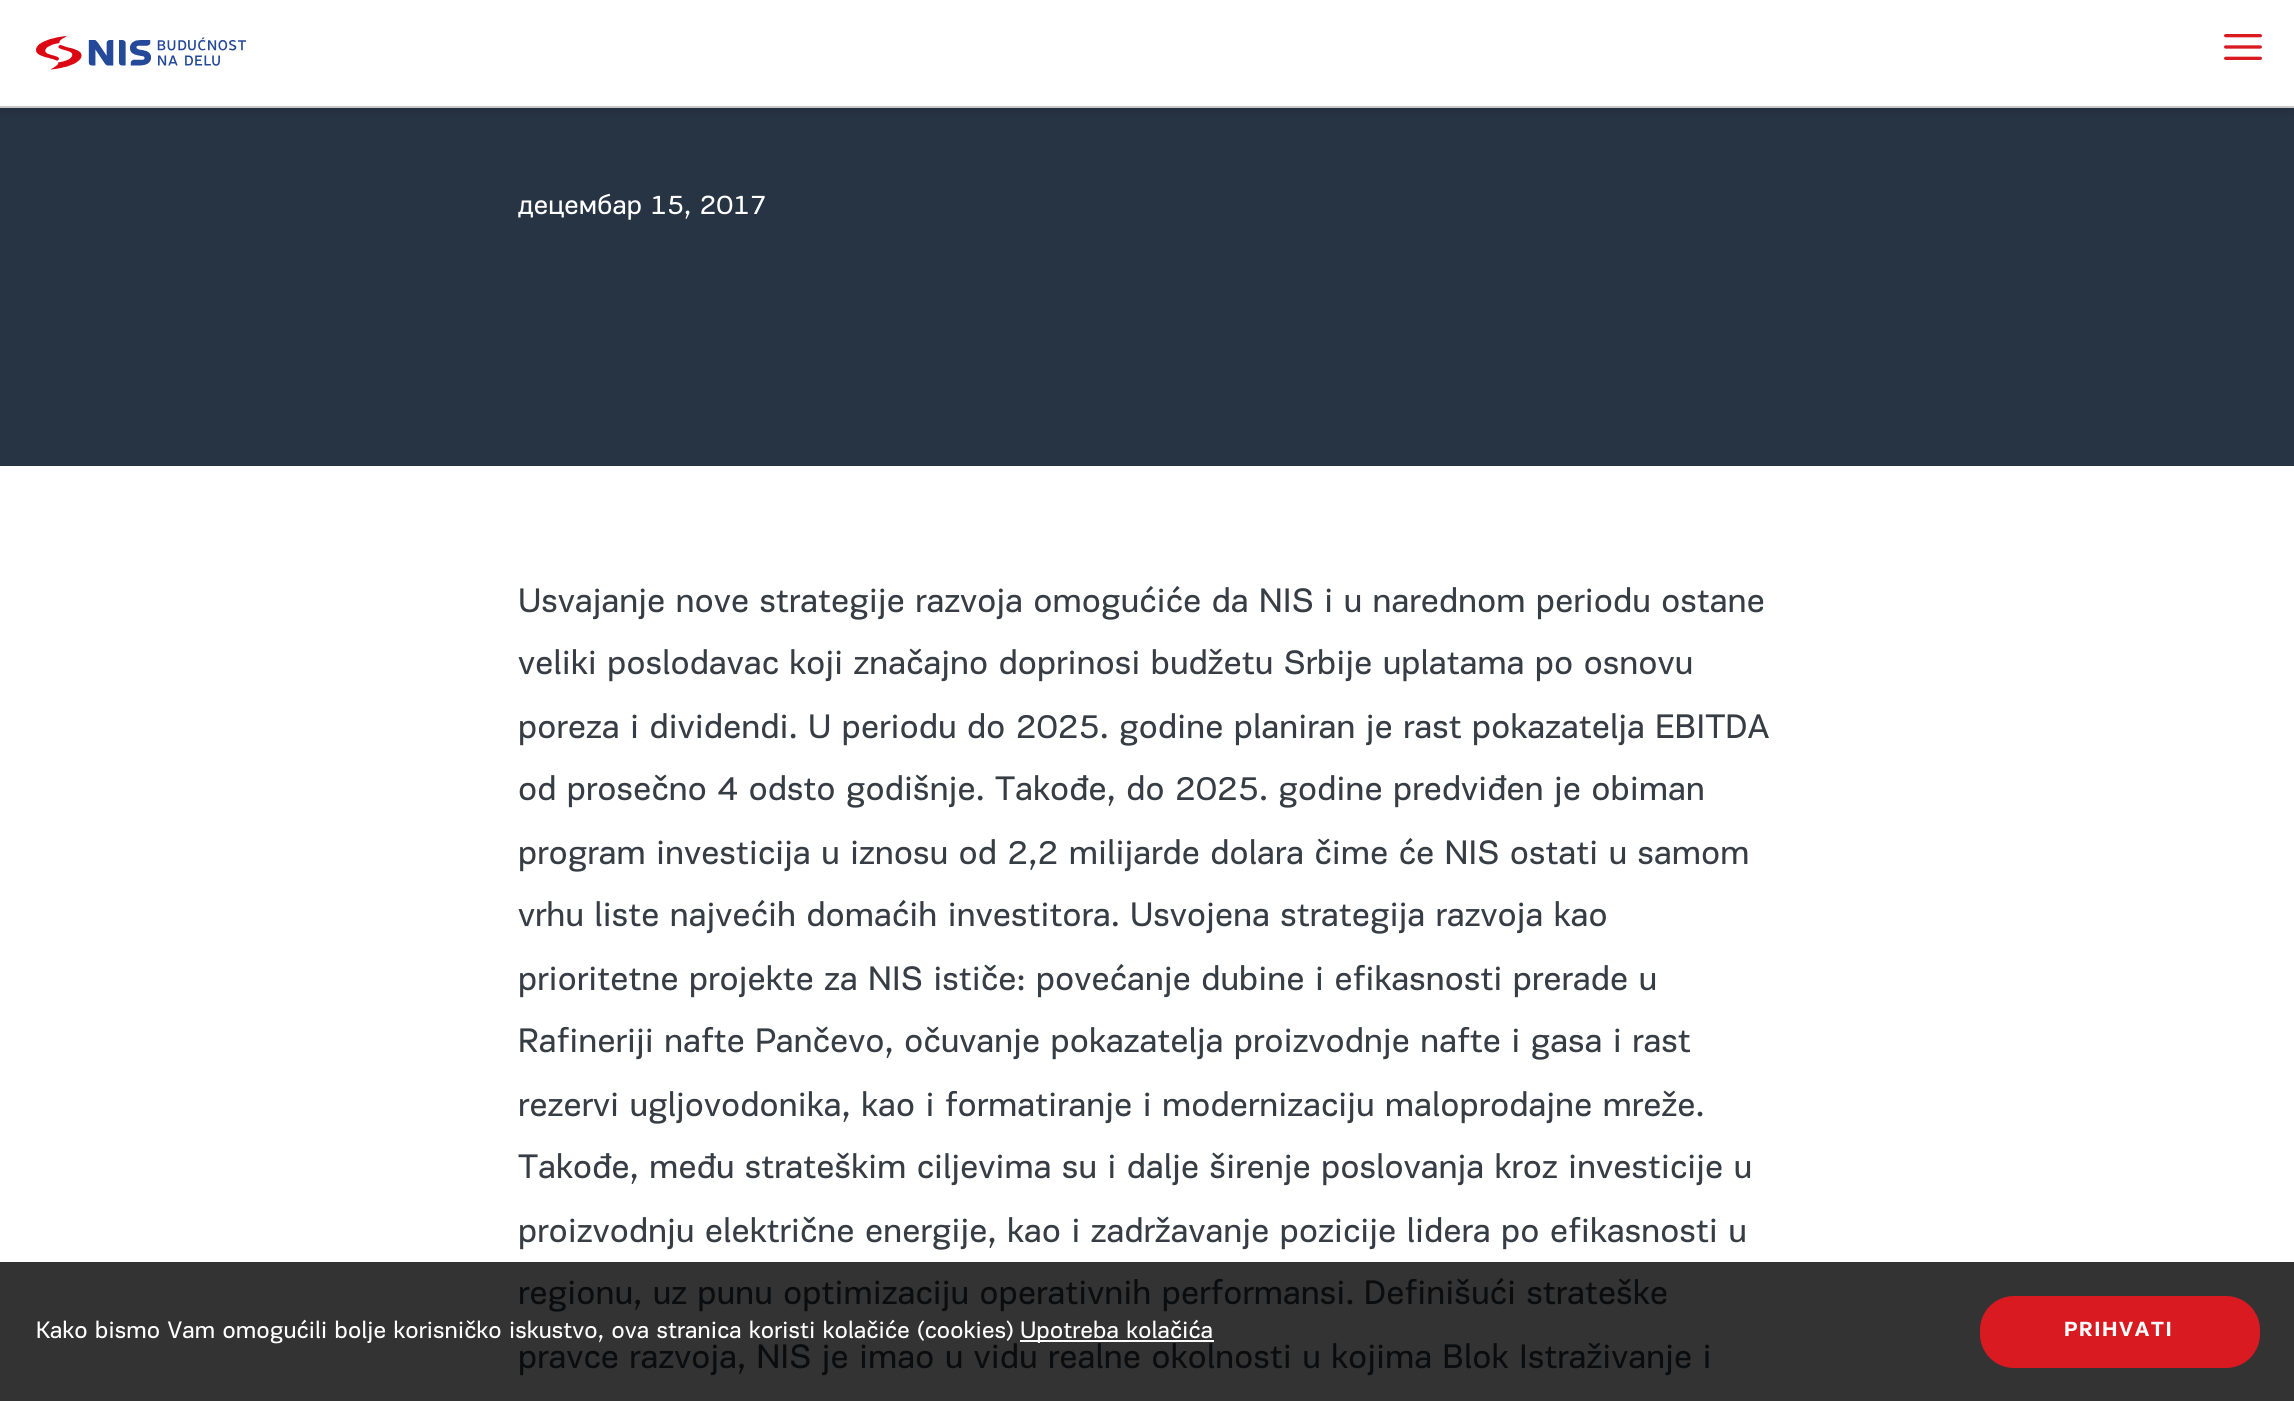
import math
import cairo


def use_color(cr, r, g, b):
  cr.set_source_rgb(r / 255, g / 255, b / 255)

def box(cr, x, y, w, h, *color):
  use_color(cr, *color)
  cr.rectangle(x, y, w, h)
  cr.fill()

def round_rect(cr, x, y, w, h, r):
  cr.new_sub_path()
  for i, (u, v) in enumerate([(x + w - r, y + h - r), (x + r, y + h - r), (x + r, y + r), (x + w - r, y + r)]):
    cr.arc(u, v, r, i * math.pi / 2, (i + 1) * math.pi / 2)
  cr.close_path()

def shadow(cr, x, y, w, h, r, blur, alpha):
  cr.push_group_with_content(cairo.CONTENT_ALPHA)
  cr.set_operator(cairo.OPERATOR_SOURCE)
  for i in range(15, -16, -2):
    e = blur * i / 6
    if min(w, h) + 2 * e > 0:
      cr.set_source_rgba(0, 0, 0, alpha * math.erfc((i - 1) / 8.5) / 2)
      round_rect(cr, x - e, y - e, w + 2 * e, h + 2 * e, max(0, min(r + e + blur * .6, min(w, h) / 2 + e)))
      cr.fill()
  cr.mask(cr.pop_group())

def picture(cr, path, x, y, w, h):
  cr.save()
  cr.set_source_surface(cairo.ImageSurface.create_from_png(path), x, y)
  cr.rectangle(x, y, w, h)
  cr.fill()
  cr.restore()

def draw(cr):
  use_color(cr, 255, 255, 255)
  cr.paint()
  box(cr, 0, 1262, 2294, 139, 51, 51, 51)
  box(cr, 0, 108, 2294, 358, 39, 52, 68)
  use_color(cr, 0, 0, 0)
  shadow(cr, -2, 0, 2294, 108, 0, 6, 0.22)
  box(cr, 0, 0, 2294, 106, 255, 255, 255)
  box(cr, 0, 106, 2294, 2, 199, 199, 199)
  picture(cr, "img_01.png", 36, 36, 210, 34)
  picture(cr, "img_02.png", 2224, 34, 38, 26)
  picture(cr, "img_03.png", 518, 193, 247, 27)
  picture(cr, "img_04.png", 520, 585, 1244, 35)
  picture(cr, "img_05.png", 518, 648, 1174, 34)
  picture(cr, "img_06.png", 520, 713, 1249, 33)
  picture(cr, "img_07.png", 519, 774, 1184, 34)
  picture(cr, "img_08.png", 520, 837, 1228, 35)
  picture(cr, "img_09.png", 518, 899, 600, 35)
  picture(cr, "img_10.png", 1132, 901, 474, 33)
  picture(cr, "img_11.png", 520, 963, 1136, 35)
  picture(cr, "img_12.png", 520, 1026, 1170, 34)
  picture(cr, "img_13.png", 520, 1090, 1183, 34)
  picture(cr, "img_14.png", 518, 1152, 1233, 34)
  picture(cr, "img_15.png", 520, 1216, 1225, 34)
  picture(cr, "img_16.png", 520, 1278, 833, 34)
  picture(cr, "img_17.png", 1366, 1277, 301, 28)
  picture(cr, "img_18.png", 520, 1342, 1189, 34)
  picture(cr, "img_19.png", 37, 1319, 976, 25)
  box(cr, 1020, 1340, 194, 2, 255, 255, 255)
  picture(cr, "img_20.png", 1021, 1319, 191, 24)
  use_color(cr, 217, 26, 33)
  round_rect(cr, 1980, 1296, 280, 72, 34)
  cr.fill()
  picture(cr, "img_21.png", 2065, 1321, 106, 15)


surface = cairo.ImageSurface(cairo.FORMAT_RGB24, 2294, 1401)
cr = cairo.Context(surface)
options = cairo.FontOptions()
options.set_hint_metrics(cairo.HINT_METRICS_OFF)
options.set_hint_style(cairo.HINT_STYLE_NONE)
cr.set_font_options(options)
cr.set_miter_limit(4)
draw(cr)
surface.write_to_png("out.png")
